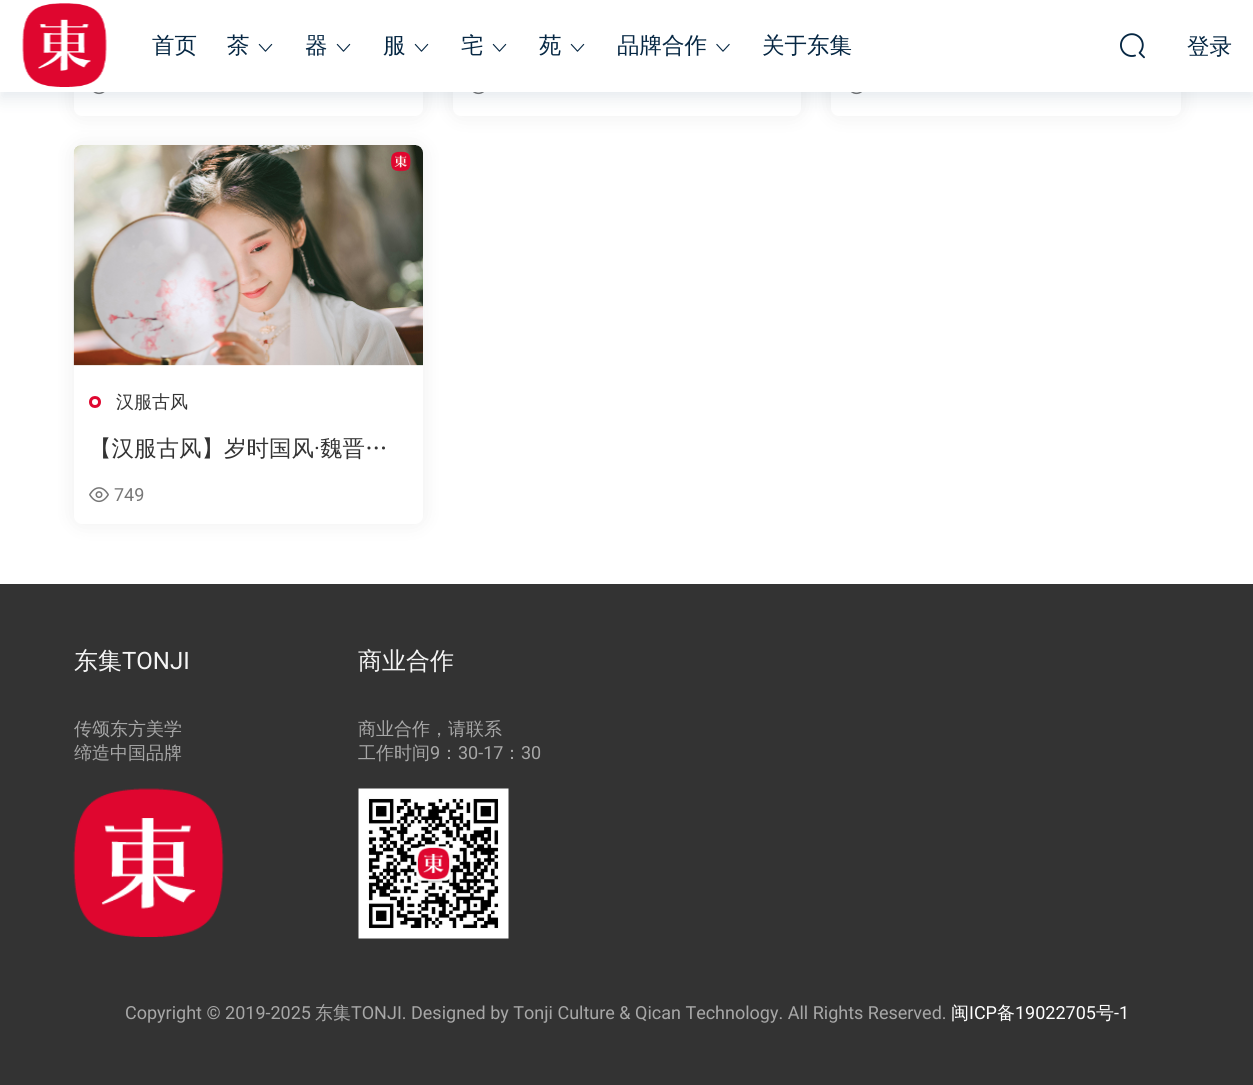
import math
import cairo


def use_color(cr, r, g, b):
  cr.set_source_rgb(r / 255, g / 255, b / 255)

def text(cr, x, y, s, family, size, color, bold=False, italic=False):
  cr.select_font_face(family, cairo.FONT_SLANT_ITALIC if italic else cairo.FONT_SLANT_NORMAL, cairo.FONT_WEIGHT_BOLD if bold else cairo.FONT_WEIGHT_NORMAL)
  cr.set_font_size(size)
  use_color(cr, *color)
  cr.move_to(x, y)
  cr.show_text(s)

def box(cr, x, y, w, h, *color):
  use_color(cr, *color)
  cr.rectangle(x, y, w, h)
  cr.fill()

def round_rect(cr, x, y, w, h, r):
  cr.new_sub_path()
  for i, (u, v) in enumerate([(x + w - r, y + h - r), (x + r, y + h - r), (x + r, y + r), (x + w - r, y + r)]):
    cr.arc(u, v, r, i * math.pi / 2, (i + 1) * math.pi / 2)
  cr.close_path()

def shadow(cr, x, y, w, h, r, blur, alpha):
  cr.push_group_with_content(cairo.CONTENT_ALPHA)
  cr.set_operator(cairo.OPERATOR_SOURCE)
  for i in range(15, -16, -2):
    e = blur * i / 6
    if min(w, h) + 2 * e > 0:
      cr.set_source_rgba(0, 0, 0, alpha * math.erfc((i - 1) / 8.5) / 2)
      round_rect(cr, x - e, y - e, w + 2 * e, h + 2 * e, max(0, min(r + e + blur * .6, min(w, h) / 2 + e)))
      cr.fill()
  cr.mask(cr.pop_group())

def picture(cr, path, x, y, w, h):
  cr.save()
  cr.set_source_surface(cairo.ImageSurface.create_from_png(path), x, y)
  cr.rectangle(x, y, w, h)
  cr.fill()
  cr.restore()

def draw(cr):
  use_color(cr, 255, 255, 255)
  cr.paint()
  use_color(cr, 0, 0, 0)
  shadow(cr, 74, -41, 349, 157, 8, 11, 0.07)
  use_color(cr, 255, 255, 255)
  round_rect(cr, 74, -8, 349, 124, 8)
  cr.fill()
  picture(cr, "img_05.png", 93, 92, 12, 3)
  use_color(cr, 0, 0, 0)
  shadow(cr, 453, -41, 348, 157, 8, 11, 0.07)
  use_color(cr, 255, 255, 255)
  round_rect(cr, 453, -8, 348, 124, 8)
  cr.fill()
  picture(cr, "img_06.png", 473, 92, 11, 3)
  use_color(cr, 0, 0, 0)
  shadow(cr, 831, -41, 350, 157, 8, 11, 0.07)
  use_color(cr, 255, 255, 255)
  round_rect(cr, 831, -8, 350, 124, 8)
  cr.fill()
  picture(cr, "img_06.png", 851, 92, 11, 3)
  use_color(cr, 17, 58, 93)
  shadow(cr, 0, 8, 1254, 91, 0, 7.5, 0.1)
  box(cr, 0, 0, 1253, 92, 255, 255, 255)
  picture(cr, "img_01.png", 22, 3, 85, 84)
  picture(cr, "img_02.png", 258, 43, 15, 9)
  picture(cr, "img_02.png", 336, 43, 15, 9)
  picture(cr, "img_02.png", 414, 43, 15, 9)
  picture(cr, "img_02.png", 492, 43, 15, 9)
  picture(cr, "img_02.png", 570, 43, 15, 9)
  picture(cr, "img_03.png", 716, 43, 14, 9)
  picture(cr, "img_04.png", 1120, 33, 25, 26)
  use_color(cr, 0, 0, 0)
  shadow(cr, 74, 146, 349, 378, 8, 11, 0.07)
  use_color(cr, 255, 255, 255)
  round_rect(cr, 74, 146, 349, 378, 8)
  cr.fill()
  picture(cr, "img_07.png", 73, 145, 350, 221)
  cr.arc(95, 402, 4.5, 0, 2 * math.pi)
  use_color(cr, 223, 7, 48)
  cr.set_line_width(3)
  cr.stroke()
  picture(cr, "img_08.png", 89, 487, 20, 16)
  box(cr, 0, 584, 1253, 501, 51, 51, 51)
  picture(cr, "img_09.png", 73, 788, 151, 149)
  picture(cr, "img_10.png", 358, 788, 151, 151)
  text(cr, 152, 53, "首页", "WenQuanYi Zen Hei Medium", 22.5, (6, 39, 67))
  text(cr, 227, 53, "茶", "WenQuanYi Zen Hei Medium", 22.5, (6, 39, 67))
  text(cr, 305, 53, "器", "WenQuanYi Zen Hei Medium", 22.5, (6, 39, 67))
  text(cr, 383, 53, "服", "WenQuanYi Zen Hei Medium", 22.5, (6, 39, 67))
  text(cr, 461, 53, "宅", "WenQuanYi Zen Hei Medium", 22.5, (6, 39, 67))
  text(cr, 539, 53, "苑", "WenQuanYi Zen Hei Medium", 22.5, (6, 39, 67))
  text(cr, 617, 53, "品牌合作", "WenQuanYi Zen Hei Medium", 22.5, (6, 39, 67))
  text(cr, 762, 53, "关于东集", "WenQuanYi Zen Hei Medium", 22.5, (6, 39, 67))
  text(cr, 1187, 54, "登录", "WenQuanYi Zen Hei Medium", 22.5, (6, 39, 67))
  text(cr, 116, 408, "汉服古风", "WenQuanYi Zen Hei Medium", 18, (51, 51, 51))
  text(cr, 89, 456, "【汉服古风】岁时国风", "WenQuanYi Zen Hei Medium", 22.5, (51, 51, 51))
  text(cr, 314, 456, "·", "Roboto", 22.5, (51, 51, 51))
  text(cr, 320, 456, "魏晋…", "WenQuanYi Zen Hei Medium", 22.5, (51, 51, 51))
  text(cr, 114, 501, "749", "Roboto", 18, (119, 119, 119))
  text(cr, 74, 669, "东集", "WenQuanYi Zen Hei Medium", 24, (245, 245, 245))
  text(cr, 122, 669, "TONJI", "Roboto", 24, (245, 245, 245))
  text(cr, 74, 735, "传颂东方美学", "WenQuanYi Zen Hei Medium", 18, (167, 167, 167))
  text(cr, 74, 759, "缔造中国品牌", "WenQuanYi Zen Hei Medium", 18, (167, 167, 167))
  text(cr, 358, 669, "商业合作", "WenQuanYi Zen Hei Medium", 24, (245, 245, 245))
  text(cr, 358, 735, "商业合作，请联系", "WenQuanYi Zen Hei Medium", 18, (167, 167, 167))
  text(cr, 358, 759, "工作时间", "WenQuanYi Zen Hei Medium", 18, (167, 167, 167))
  text(cr, 430, 759, "9", "Roboto", 18, (167, 167, 167))
  text(cr, 440, 759, "：", "WenQuanYi Zen Hei Medium", 18, (167, 167, 167))
  text(cr, 458, 759, "30-17", "Roboto", 18, (167, 167, 167))
  text(cr, 503, 759, "：", "WenQuanYi Zen Hei Medium", 18, (167, 167, 167))
  text(cr, 521, 759, "30", "Roboto", 18, (167, 167, 167))
  text(cr, 125, 1019, "Copyright © 2019-2025", "Roboto", 18, (167, 167, 167))
  text(cr, 315, 1019, "东集", "WenQuanYi Zen Hei Medium", 18, (167, 167, 167))
  text(cr, 351, 1019, "TONJI. Designed by Tonji Culture & Qican Technology. All Rights Reserved.", "Roboto", 18, (167, 167, 167))
  text(cr, 951, 1019, "闽", "WenQuanYi Zen Hei Medium", 18, (255, 255, 255))
  text(cr, 969, 1019, "ICP", "Roboto", 18, (255, 255, 255))
  text(cr, 997, 1019, "备", "WenQuanYi Zen Hei Medium", 18, (255, 255, 255))
  text(cr, 1015, 1019, "19022705", "Roboto", 18, (255, 255, 255))
  text(cr, 1096, 1019, "号", "WenQuanYi Zen Hei Medium", 18, (255, 255, 255))
  text(cr, 1114, 1019, "-1", "Roboto", 18, (255, 255, 255))


surface = cairo.ImageSurface(cairo.FORMAT_RGB24, 1253, 1085)
cr = cairo.Context(surface)
options = cairo.FontOptions()
options.set_hint_metrics(cairo.HINT_METRICS_OFF)
options.set_hint_style(cairo.HINT_STYLE_NONE)
cr.set_font_options(options)
cr.set_miter_limit(4)
draw(cr)
surface.write_to_png("out.png")
